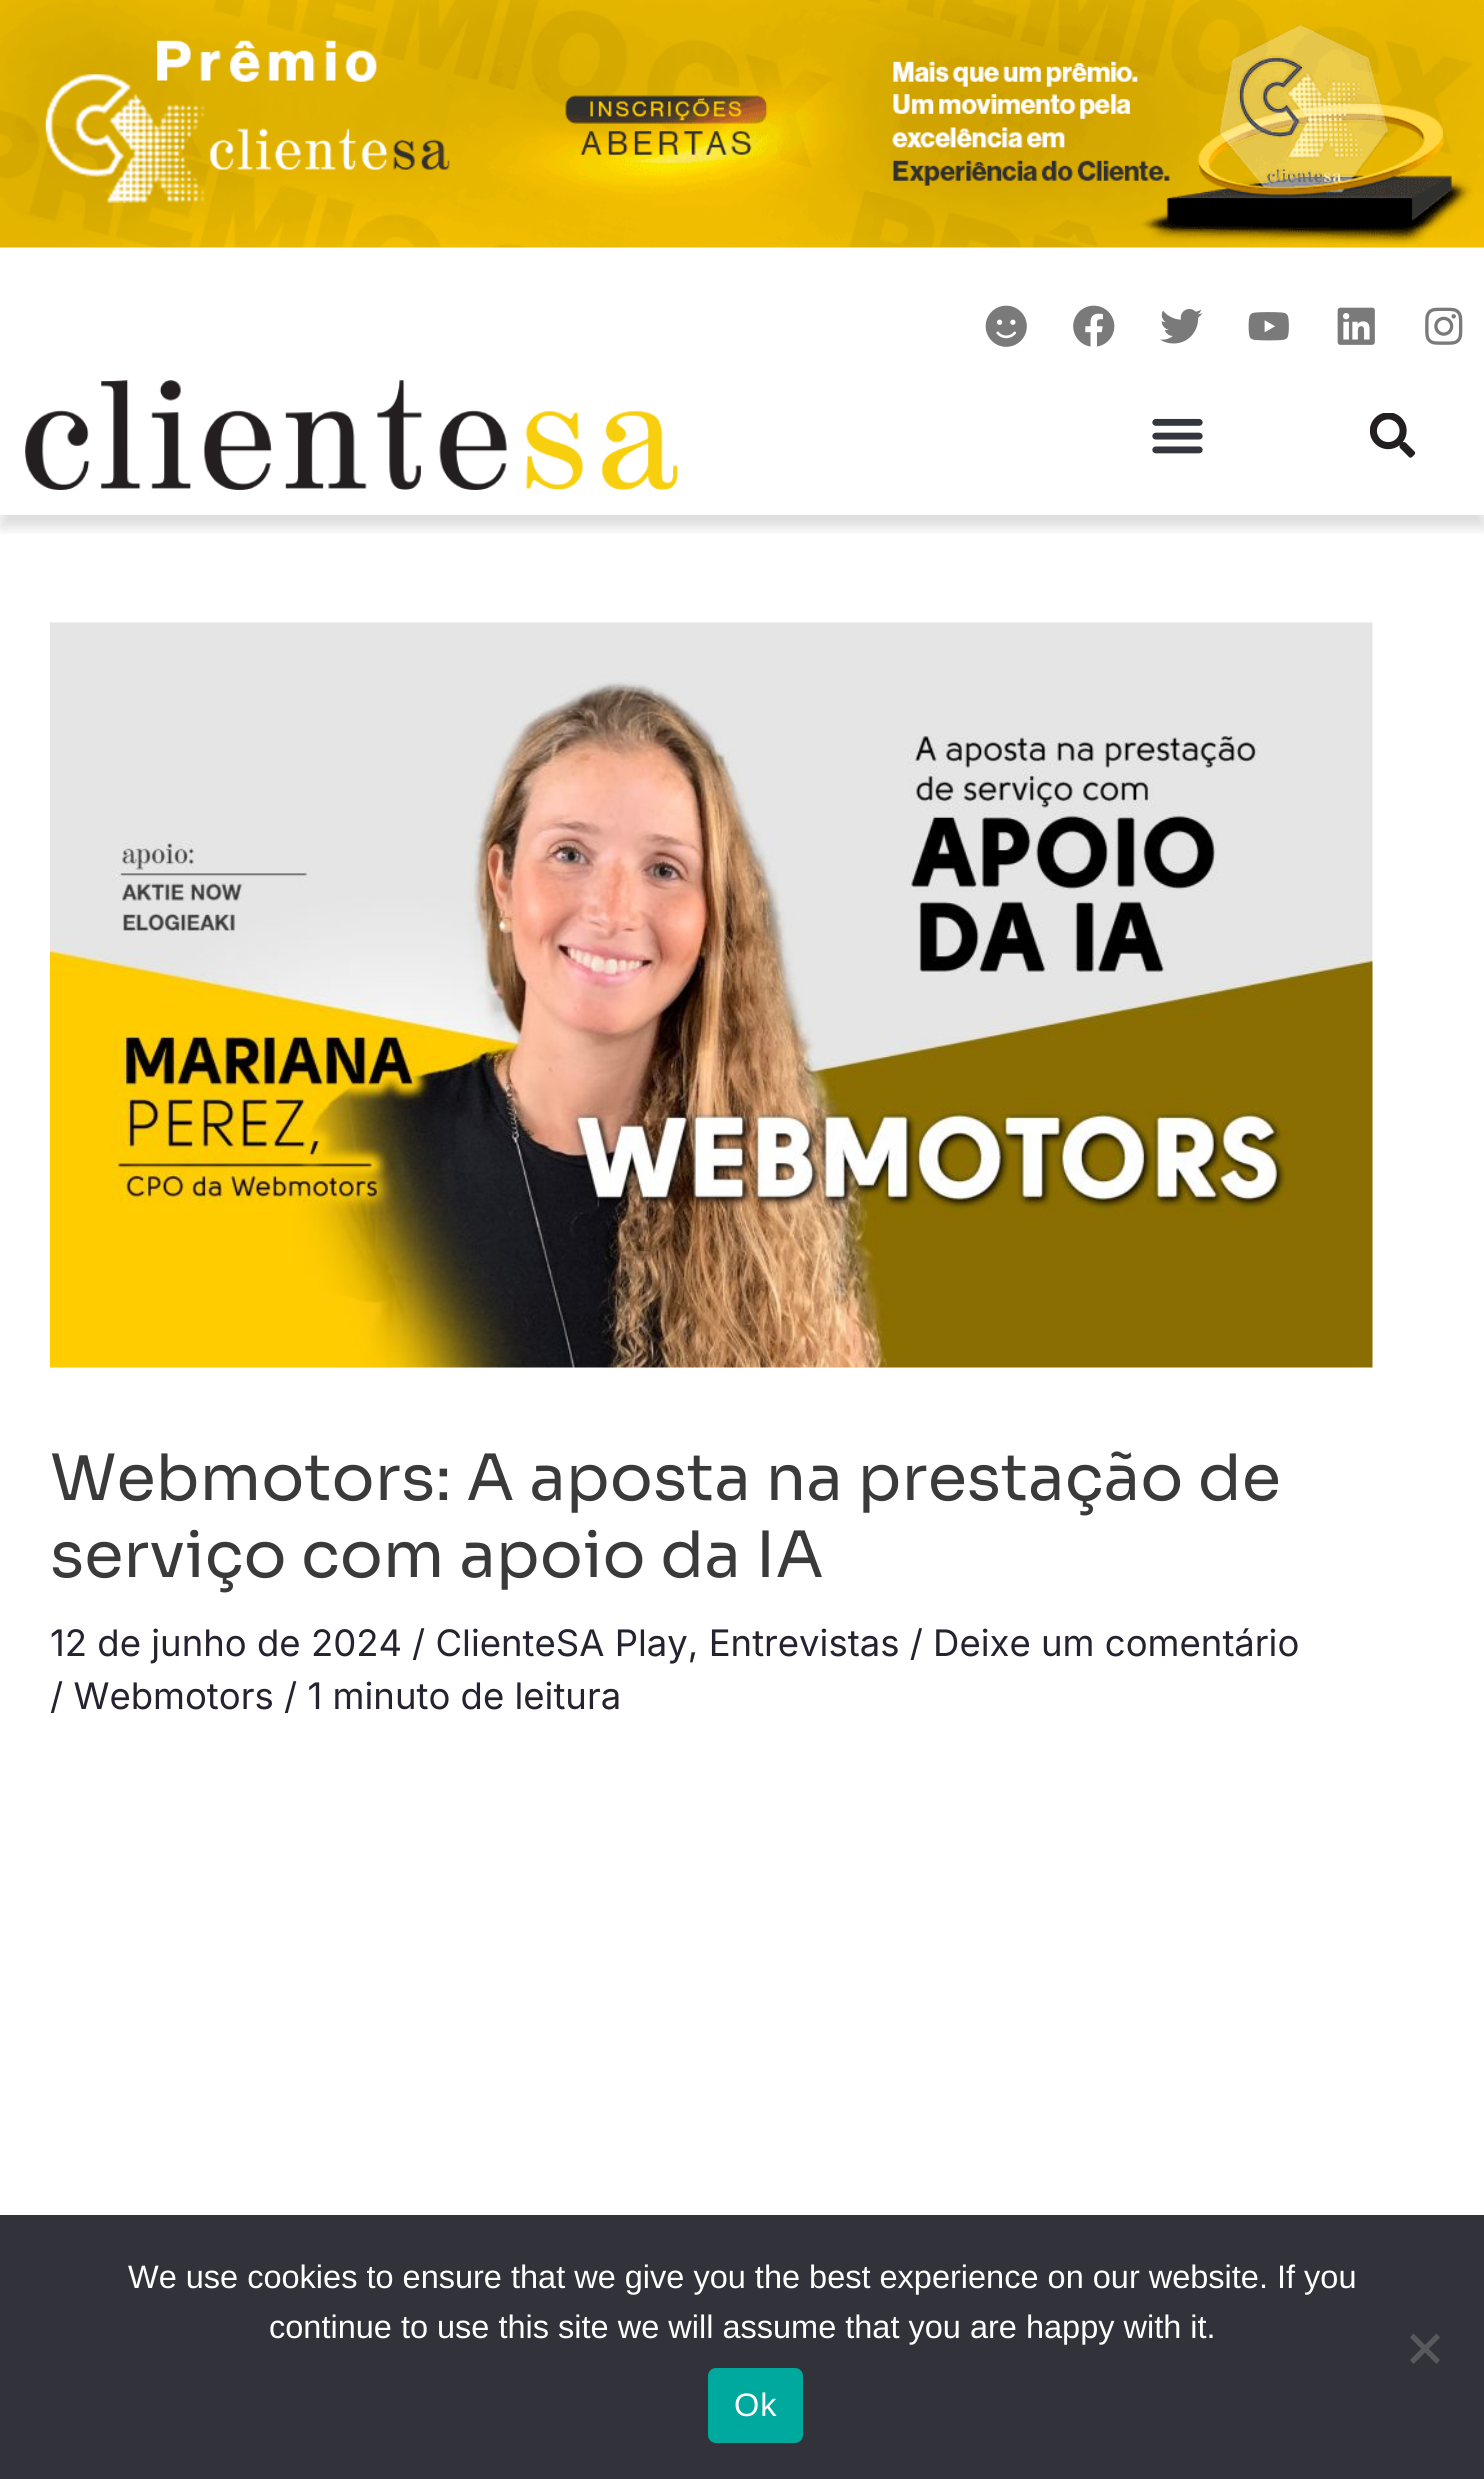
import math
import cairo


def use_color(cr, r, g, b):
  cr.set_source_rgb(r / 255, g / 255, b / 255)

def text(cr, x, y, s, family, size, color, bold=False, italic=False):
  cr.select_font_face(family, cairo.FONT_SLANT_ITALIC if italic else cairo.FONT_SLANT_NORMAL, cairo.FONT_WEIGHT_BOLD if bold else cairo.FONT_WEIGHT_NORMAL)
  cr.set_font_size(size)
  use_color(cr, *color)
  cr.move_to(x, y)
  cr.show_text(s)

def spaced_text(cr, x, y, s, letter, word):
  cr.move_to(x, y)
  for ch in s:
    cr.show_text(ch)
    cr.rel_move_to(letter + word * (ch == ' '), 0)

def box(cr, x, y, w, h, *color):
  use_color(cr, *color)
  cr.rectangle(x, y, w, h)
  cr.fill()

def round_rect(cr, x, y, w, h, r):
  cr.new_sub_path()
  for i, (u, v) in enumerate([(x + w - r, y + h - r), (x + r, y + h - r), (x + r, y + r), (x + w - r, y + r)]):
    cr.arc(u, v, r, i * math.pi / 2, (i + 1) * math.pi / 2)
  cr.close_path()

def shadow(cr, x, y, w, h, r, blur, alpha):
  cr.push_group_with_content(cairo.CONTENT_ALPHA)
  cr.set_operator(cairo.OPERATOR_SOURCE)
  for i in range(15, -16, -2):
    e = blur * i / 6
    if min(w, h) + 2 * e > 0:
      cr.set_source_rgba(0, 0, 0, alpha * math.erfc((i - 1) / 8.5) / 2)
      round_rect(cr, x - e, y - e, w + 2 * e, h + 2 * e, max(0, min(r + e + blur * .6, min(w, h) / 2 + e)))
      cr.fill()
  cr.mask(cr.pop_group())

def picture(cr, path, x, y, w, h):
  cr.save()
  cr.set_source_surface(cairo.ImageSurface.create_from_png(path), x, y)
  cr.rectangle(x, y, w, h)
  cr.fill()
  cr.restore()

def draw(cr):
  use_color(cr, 255, 255, 255)
  cr.paint()
  picture(cr, "img_01.png", 0, 0, 1484, 248)
  picture(cr, "img_02.png", 985, 305, 42, 42)
  picture(cr, "img_03.png", 1073, 305, 42, 42)
  picture(cr, "img_04.png", 1160, 309, 43, 35)
  picture(cr, "img_05.png", 1248, 312, 41, 29)
  picture(cr, "img_06.png", 1337, 307, 38, 38)
  picture(cr, "img_07.png", 1425, 307, 38, 38)
  cr.save()
  cr.rectangle(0, 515, 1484, 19)
  cr.clip()
  use_color(cr, 0, 0, 0)
  shadow(cr, 0, 383, 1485, 145, 0, 6, 0.13)
  cr.restore()
  picture(cr, "img_08.png", 25, 380, 653, 110)
  picture(cr, "img_09.png", 1152, 418, 51, 36)
  picture(cr, "img_10.png", 1370, 413, 46, 45)
  picture(cr, "img_11.png", 50, 622, 1323, 746)
  box(cr, 0, 2215, 1484, 264, 50, 50, 58)
  use_color(cr, 89, 89, 93)
  cr.new_path()
  cr.move_to(1436.5, 2333.5)
  cr.line_to(1440, 2337.5)
  cr.line_to(1413.5, 2364)
  cr.line_to(1410, 2360)
  cr.close_path()
  cr.fill()
  cr.new_path()
  cr.move_to(1410, 2337.5)
  cr.line_to(1413.5, 2333.5)
  cr.line_to(1440, 2360)
  cr.line_to(1436.5, 2364)
  cr.close_path()
  cr.fill()
  use_color(cr, 0, 169, 157)
  round_rect(cr, 708, 2368, 95, 75, 8)
  cr.fill()
  text(cr, 50, 1500, "Webmotors: A aposta na prestação de", "Sora", 63.8, (58, 58, 58))
  text(cr, 50, 1577, "serviço com apoio da IA", "Sora", 63.8, (58, 58, 58))
  text(cr, 50, 1656, "12 de junho de 2024", "Inter", 36.5, (38, 34, 47))
  text(cr, 412, 1656, "/ ClienteSA Play, Entrevistas / Deixe um comentário", "Inter", 36.5, (38, 34, 47))
  text(cr, 50, 1709, "/ Webmotors / 1 minuto de leitura", "Inter", 36.5, (38, 34, 47))
  text(cr, 128, 2288, "We use cookies to ensure that we give you the best experience on our website. If you", "Liberation Sans", 32.5, (255, 255, 255))
  text(cr, 269, 2338, "continue to use this site we will assume that you are happy with it.", "Liberation Sans", 32.5, (255, 255, 255))
  spaced_text(cr, 734, 2416, "Ok", 1, 0)


surface = cairo.ImageSurface(cairo.FORMAT_RGB24, 1484, 2479)
cr = cairo.Context(surface)
options = cairo.FontOptions()
options.set_hint_metrics(cairo.HINT_METRICS_OFF)
options.set_hint_style(cairo.HINT_STYLE_NONE)
cr.set_font_options(options)
cr.set_miter_limit(4)
draw(cr)
surface.write_to_png("out.png")
